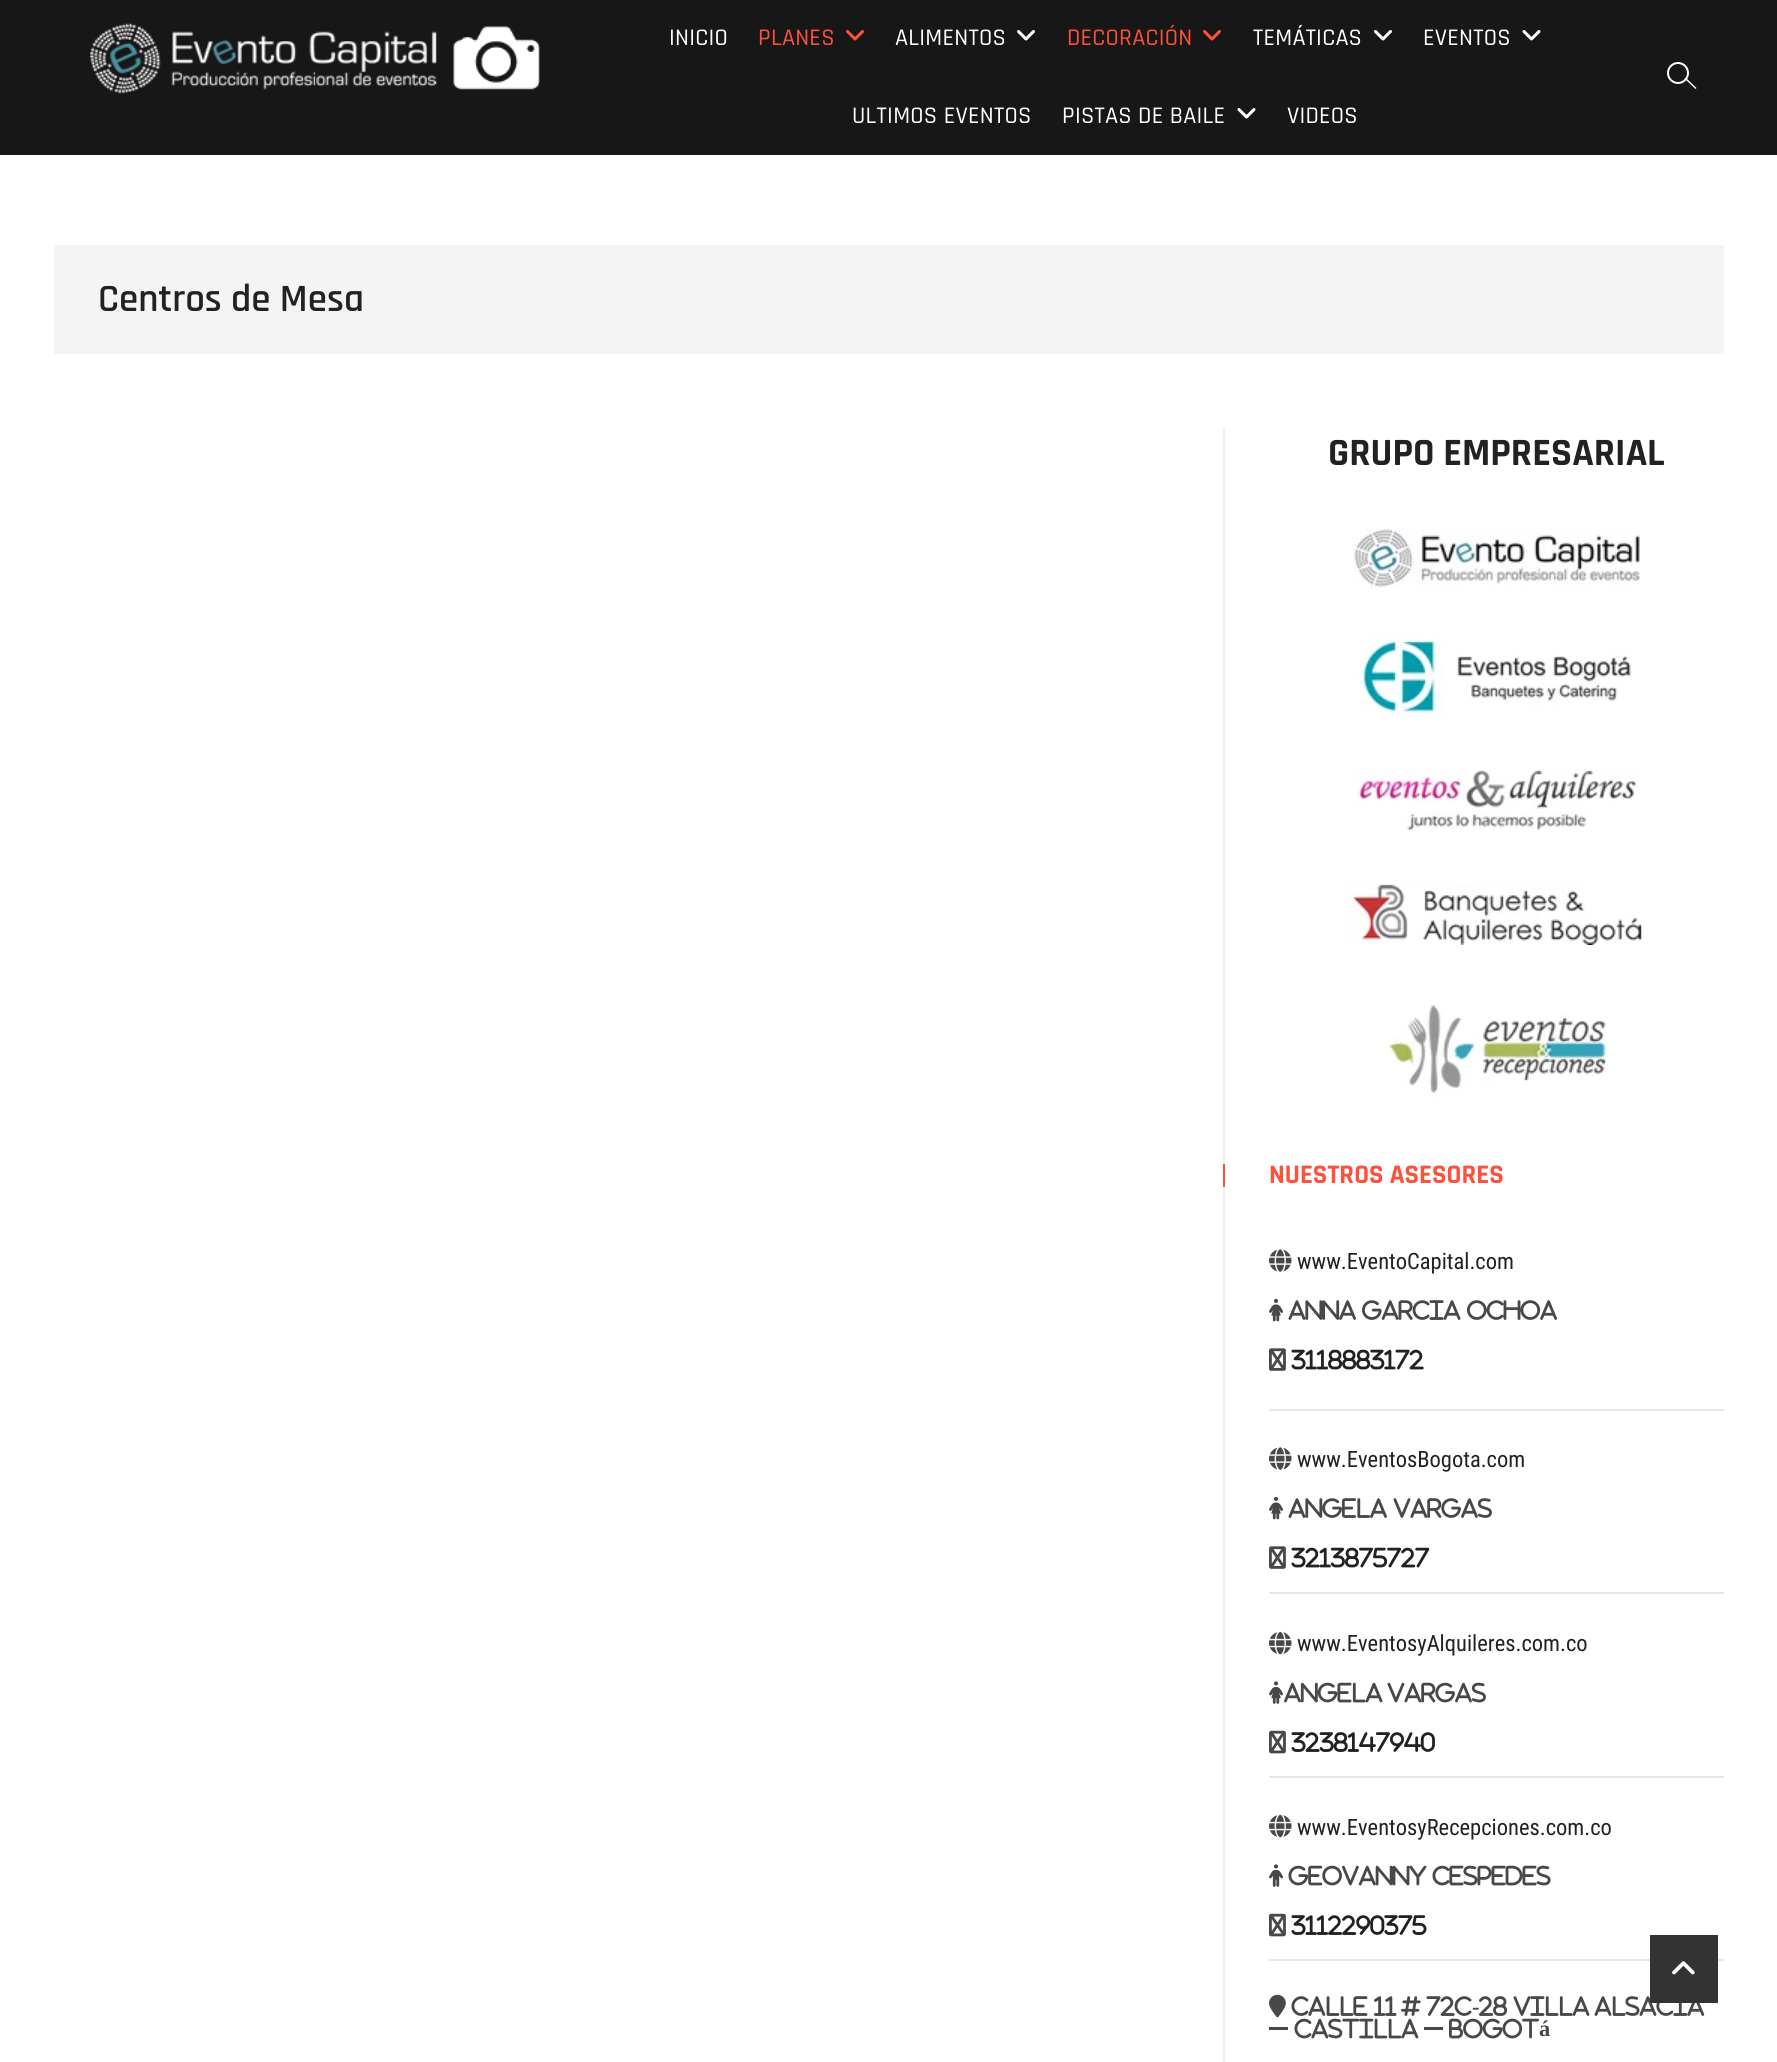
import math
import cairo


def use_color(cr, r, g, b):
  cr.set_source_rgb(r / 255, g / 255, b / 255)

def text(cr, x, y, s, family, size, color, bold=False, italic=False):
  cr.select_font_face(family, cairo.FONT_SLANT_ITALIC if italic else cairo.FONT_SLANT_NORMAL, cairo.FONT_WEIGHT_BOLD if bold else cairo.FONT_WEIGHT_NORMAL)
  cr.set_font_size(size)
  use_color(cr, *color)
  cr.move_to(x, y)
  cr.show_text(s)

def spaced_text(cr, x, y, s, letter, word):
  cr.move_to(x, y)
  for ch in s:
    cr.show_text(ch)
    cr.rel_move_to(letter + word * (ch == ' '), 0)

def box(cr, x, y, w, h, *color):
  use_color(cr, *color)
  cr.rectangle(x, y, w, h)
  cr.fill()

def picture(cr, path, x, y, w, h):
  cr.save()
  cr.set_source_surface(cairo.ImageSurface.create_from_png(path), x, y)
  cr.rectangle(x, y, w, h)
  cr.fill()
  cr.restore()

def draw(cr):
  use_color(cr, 255, 255, 255)
  cr.paint()
  box(cr, 0, 0, 1777, 155, 23, 23, 23)
  picture(cr, "img_01.png", 90, 23, 450, 71)
  picture(cr, "img_02.png", 846, 30, 18, 11)
  picture(cr, "img_03.png", 1017, 30, 18, 11)
  picture(cr, "img_02.png", 1203, 30, 18, 11)
  picture(cr, "img_03.png", 1374, 30, 18, 11)
  picture(cr, "img_04.png", 1522, 30, 19, 11)
  picture(cr, "img_04.png", 1237, 108, 19, 11)
  cr.arc(1678, 73, 10, 0, 2 * math.pi)
  use_color(cr, 255, 255, 255)
  cr.stroke()
  cr.new_path()
  cr.move_to(1684.5, 78.5)
  cr.line_to(1685.5, 77.5)
  cr.line_to(1696.5, 88)
  cr.line_to(1695.5, 89)
  cr.close_path()
  cr.fill()
  box(cr, 54, 245, 1670, 109, 244, 244, 244)
  box(cr, 1223, 429, 2, 1633, 238, 238, 238)
  picture(cr, "img_05.png", 1353, 529, 288, 60)
  picture(cr, "img_06.png", 1359, 636, 272, 82)
  picture(cr, "img_07.png", 1357, 769, 280, 61)
  picture(cr, "img_08.png", 1347, 883, 295, 62)
  picture(cr, "img_09.png", 1385, 1004, 224, 94)
  box(cr, 1223, 1164, 2, 23, 253, 81, 59)
  picture(cr, "img_10.png", 1269, 1249, 23, 23)
  picture(cr, "img_11.png", 1269, 1298, 14, 24)
  picture(cr, "img_12.png", 1288, 1300, 68, 20)
  picture(cr, "img_13.png", 1362, 1300, 99, 20)
  picture(cr, "img_14.png", 1467, 1300, 90, 20)
  picture(cr, "img_15.png", 1269, 1348, 17, 23)
  picture(cr, "img_16.png", 1291, 1349, 133, 21)
  box(cr, 1269, 1409, 455, 2, 230, 230, 230)
  picture(cr, "img_10.png", 1269, 1447, 23, 23)
  picture(cr, "img_11.png", 1269, 1496, 14, 24)
  picture(cr, "img_17.png", 1288, 1498, 99, 20)
  picture(cr, "img_18.png", 1393, 1498, 99, 20)
  picture(cr, "img_15.png", 1269, 1546, 17, 23)
  picture(cr, "img_19.png", 1291, 1547, 139, 21)
  box(cr, 1269, 1592, 455, 2, 230, 230, 230)
  picture(cr, "img_20.png", 1269, 1631, 23, 24)
  picture(cr, "img_21.png", 1269, 1681, 14, 23)
  picture(cr, "img_22.png", 1284, 1682, 99, 21)
  picture(cr, "img_23.png", 1387, 1682, 99, 21)
  picture(cr, "img_24.png", 1269, 1730, 17, 24)
  picture(cr, "img_25.png", 1291, 1732, 144, 20)
  box(cr, 1269, 1776, 455, 2, 230, 230, 230)
  picture(cr, "img_20.png", 1269, 1814, 23, 24)
  picture(cr, "img_26.png", 1269, 1864, 14, 23)
  picture(cr, "img_27.png", 1288, 1865, 139, 21)
  picture(cr, "img_28.png", 1432, 1865, 119, 21)
  picture(cr, "img_24.png", 1269, 1913, 17, 24)
  picture(cr, "img_29.png", 1291, 1915, 136, 20)
  box(cr, 1269, 1959, 455, 2, 230, 230, 230)
  picture(cr, "img_30.png", 1269, 1994, 17, 24)
  picture(cr, "img_31.png", 1291, 1996, 77, 20)
  picture(cr, "img_32.png", 1374, 1996, 23, 20)
  picture(cr, "img_33.png", 1401, 1996, 20, 20)
  picture(cr, "img_34.png", 1426, 1996, 46, 20)
  box(cr, 1269, 2027, 19, 3, 72, 72, 72)
  box(cr, 1424, 2027, 19, 3, 72, 72, 72)
  picture(cr, "img_35.png", 1479, 1996, 29, 20)
  picture(cr, "img_36.png", 1513, 1996, 77, 20)
  picture(cr, "img_37.png", 1594, 1996, 111, 20)
  picture(cr, "img_38.png", 1294, 2018, 125, 21)
  picture(cr, "img_39.png", 1449, 2018, 90, 21)
  box(cr, 1650, 1935, 68, 68, 51, 51, 51)
  picture(cr, "img_40.png", 1672, 1961, 23, 14)
  cr.select_font_face("Rajdhani Medium")
  cr.set_font_size(24)
  use_color(cr, 255, 255, 255)
  spaced_text(cr, 669, 45, "INICIO", 0.25, 0)
  use_color(cr, 253, 81, 59)
  spaced_text(cr, 758, 45, "PLANES", 0.25, 0)
  use_color(cr, 255, 255, 255)
  spaced_text(cr, 895, 45, "ALIMENTOS", 0.25, 0)
  use_color(cr, 253, 81, 59)
  spaced_text(cr, 1067, 45, "DECORACIÓN", 0.25, 0)
  use_color(cr, 255, 255, 255)
  spaced_text(cr, 1253, 45, "TEMÁTICAS", 0.25, 0)
  spaced_text(cr, 1423, 45, "EVENTOS", 0.25, 0)
  spaced_text(cr, 852, 123, "ULTIMOS EVENTOS", 0.25, 0)
  spaced_text(cr, 1062, 123, "PISTAS DE BAILE", 0.25, 0)
  spaced_text(cr, 1287, 123, "VIDEOS", 0.25, 0)
  text(cr, 98, 311, "Centros de Mesa", "Rajdhani SemiBold", 39, (34, 34, 34))
  text(cr, 1328, 465, "GRUPO EMPRESARIAL", "Rajdhani", 39, (34, 34, 34), bold=True)
  text(cr, 1269, 1183, "NUESTROS ASESORES", "Rajdhani", 27, (253, 81, 59), bold=True)
  text(cr, 1297, 1269, "www.EventoCapital.com", "Roboto Condensed", 22.5, (34, 34, 34))
  text(cr, 1297, 1467, "www.EventosBogota.com", "Roboto Condensed", 22.5, (34, 34, 34))
  text(cr, 1297, 1651, "www.EventosyAlquileres.com.co", "Roboto Condensed", 22.5, (34, 34, 34))
  text(cr, 1297, 1835, "www.EventosyRecepciones.com.co", "Roboto Condensed", 22.5, (34, 34, 34))
  text(cr, 1472, 2014, "-", "Liberation Serif", 22.5, (72, 72, 72), bold=True)
  text(cr, 1539, 2036, "á", "Liberation Serif", 22.5, (72, 72, 72), bold=True)


surface = cairo.ImageSurface(cairo.FORMAT_RGB24, 1777, 2062)
cr = cairo.Context(surface)
options = cairo.FontOptions()
options.set_hint_metrics(cairo.HINT_METRICS_OFF)
options.set_hint_style(cairo.HINT_STYLE_NONE)
cr.set_font_options(options)
cr.set_miter_limit(4)
draw(cr)
surface.write_to_png("out.png")
